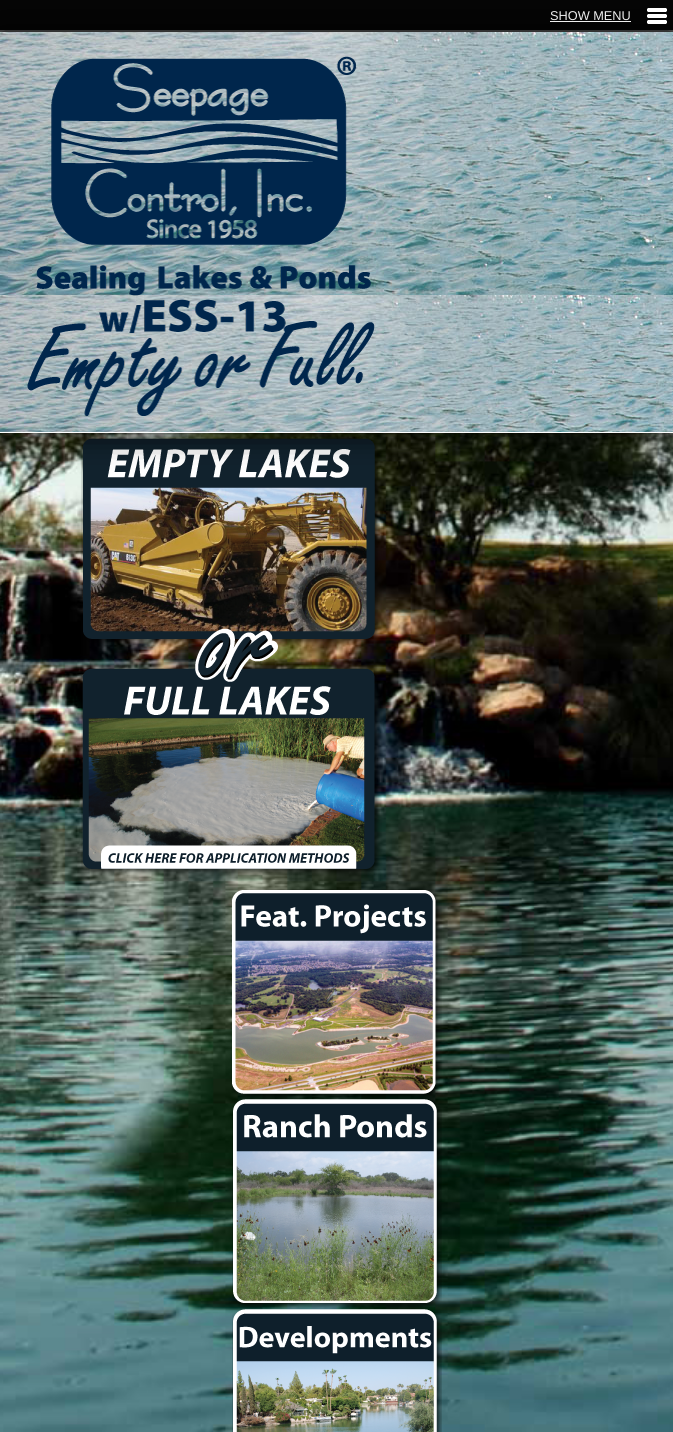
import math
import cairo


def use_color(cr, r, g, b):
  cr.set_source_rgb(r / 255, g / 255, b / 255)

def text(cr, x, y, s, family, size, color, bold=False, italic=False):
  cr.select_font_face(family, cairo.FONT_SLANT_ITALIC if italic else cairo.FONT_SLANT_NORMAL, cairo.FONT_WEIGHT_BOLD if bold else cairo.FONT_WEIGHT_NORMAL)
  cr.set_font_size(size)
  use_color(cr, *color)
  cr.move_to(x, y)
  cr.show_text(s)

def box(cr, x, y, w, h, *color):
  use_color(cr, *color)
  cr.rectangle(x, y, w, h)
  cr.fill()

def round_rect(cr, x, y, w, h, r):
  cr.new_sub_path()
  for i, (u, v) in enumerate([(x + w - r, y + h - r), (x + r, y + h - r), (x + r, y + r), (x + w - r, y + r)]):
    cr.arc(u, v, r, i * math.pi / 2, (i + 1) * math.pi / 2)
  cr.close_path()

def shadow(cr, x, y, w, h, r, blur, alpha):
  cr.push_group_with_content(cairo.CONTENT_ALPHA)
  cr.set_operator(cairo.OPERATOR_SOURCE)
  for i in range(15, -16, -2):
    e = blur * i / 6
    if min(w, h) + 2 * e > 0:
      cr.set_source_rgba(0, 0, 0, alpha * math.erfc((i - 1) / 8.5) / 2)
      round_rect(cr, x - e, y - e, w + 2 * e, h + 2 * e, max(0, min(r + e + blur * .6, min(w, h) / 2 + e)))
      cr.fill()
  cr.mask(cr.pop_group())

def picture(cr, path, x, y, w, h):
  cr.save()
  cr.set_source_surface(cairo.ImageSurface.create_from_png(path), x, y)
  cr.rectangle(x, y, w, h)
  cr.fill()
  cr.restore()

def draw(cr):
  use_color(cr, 102, 102, 102)
  cr.paint()
  picture(cr, "img_03.png", 0, 433, 673, 999)
  picture(cr, "img_05.png", 81, 435, 301, 441)
  use_color(cr, 0, 0, 0)
  shadow(cr, 0, 32, 673, 400, 0, 15, 1)
  picture(cr, "img_01.png", 0, 32, 673, 400)
  picture(cr, "img_02.png", 27, 56, 348, 361)
  box(cr, 0, 432, 673, 1, 255, 255, 255)
  cr.set_source_rgba(0, 0, 0, 0.95)
  cr.rectangle(0, 0, 673, 30)
  cr.fill()
  box(cr, 550, 21, 81, 1, 238, 238, 238)
  picture(cr, "img_04.png", 647, 8, 20, 16)
  picture(cr, "img_06.png", 232, 889, 210, 210)
  picture(cr, "img_07.png", 232, 1099, 210, 210)
  picture(cr, "img_08.png", 232, 1309, 210, 123)
  text(cr, 550, 20, "SHOW MENU", "Liberation Sans", 12.75, (238, 238, 238))


surface = cairo.ImageSurface(cairo.FORMAT_RGB24, 673, 1432)
cr = cairo.Context(surface)
options = cairo.FontOptions()
options.set_hint_metrics(cairo.HINT_METRICS_OFF)
options.set_hint_style(cairo.HINT_STYLE_NONE)
cr.set_font_options(options)
cr.set_miter_limit(4)
draw(cr)
surface.write_to_png("out.png")
